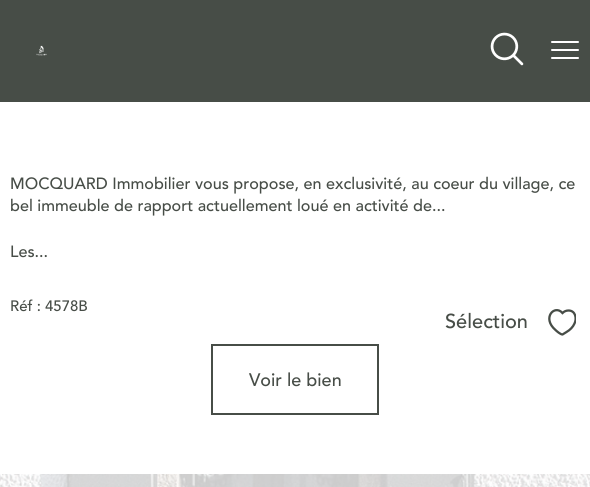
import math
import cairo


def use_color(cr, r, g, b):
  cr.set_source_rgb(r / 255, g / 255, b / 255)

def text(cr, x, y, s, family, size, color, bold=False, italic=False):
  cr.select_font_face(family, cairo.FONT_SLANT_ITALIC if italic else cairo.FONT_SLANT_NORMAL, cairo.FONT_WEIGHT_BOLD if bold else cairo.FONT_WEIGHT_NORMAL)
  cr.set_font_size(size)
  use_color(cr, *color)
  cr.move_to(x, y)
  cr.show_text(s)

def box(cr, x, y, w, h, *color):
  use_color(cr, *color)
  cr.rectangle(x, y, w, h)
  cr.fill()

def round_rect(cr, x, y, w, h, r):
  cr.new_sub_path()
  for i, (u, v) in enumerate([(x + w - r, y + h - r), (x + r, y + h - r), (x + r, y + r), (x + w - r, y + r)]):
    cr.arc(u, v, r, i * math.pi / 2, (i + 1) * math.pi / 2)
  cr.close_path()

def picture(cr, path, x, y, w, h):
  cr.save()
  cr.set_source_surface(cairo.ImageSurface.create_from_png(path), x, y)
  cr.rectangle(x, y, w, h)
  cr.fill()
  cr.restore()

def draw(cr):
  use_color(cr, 255, 255, 255)
  cr.paint()
  box(cr, 0, 0, 590, 102, 71, 77, 71)
  picture(cr, "img_01.png", 36, 45, 11, 11)
  picture(cr, "img_02.png", 490, 32, 34, 34)
  use_color(cr, 255, 255, 255)
  round_rect(cr, 551, 49, 28, 2, 1)
  cr.fill()
  round_rect(cr, 551, 41, 28, 2, 1)
  cr.fill()
  round_rect(cr, 551, 57, 28, 2, 1)
  cr.fill()
  cr.save()
  cr.rectangle(548, 308, 28, 28)
  cr.clip()
  cr.new_path()
  cr.move_to(568.5, 310.5)
  cr.curve_to(566, 310.5, 564, 311.5, 562.5, 313)
  cr.curve_to(554.5, 304, 541.5, 318, 555.5, 330)
  cr.curve_to(556.5, 331, 560.5, 334.5, 562.5, 334.5)
  cr.line_to(566.5, 332)
  cr.curve_to(570, 330, 573, 327, 574.5, 323.5)
  cr.curve_to(577, 318.5, 575.5, 310.5, 568.5, 310.5)
  cr.close_path()
  use_color(cr, 71, 77, 71)
  cr.set_line_width(2.3)
  cr.stroke()
  cr.restore()
  cr.rectangle(212, 345, 166, 69)
  use_color(cr, 71, 77, 71)
  cr.stroke()
  picture(cr, "img_03.png", 0, 474, 590, 13)
  text(cr, 10, 189, "MOCQUARD Immobilier vous propose, en exclusivité, au coeur du village, ce", "Avenir Medium", 16.2, (71, 77, 71))
  text(cr, 10, 211, "bel immeuble de rapport actuellement loué en activité de...", "Avenir Medium", 16.2, (71, 77, 71))
  text(cr, 10, 257, "Les...", "Avenir Medium", 16.2, (71, 77, 71))
  text(cr, 10, 311, "Réf : 4578B", "Avenir Medium", 15, (71, 77, 71))
  text(cr, 445, 328, "Sélection", "Avenir Medium", 20, (71, 77, 71))
  text(cr, 249, 386, "Voir le bien", "Avenir Medium", 18, (71, 77, 71))


surface = cairo.ImageSurface(cairo.FORMAT_RGB24, 590, 487)
cr = cairo.Context(surface)
options = cairo.FontOptions()
options.set_hint_metrics(cairo.HINT_METRICS_OFF)
options.set_hint_style(cairo.HINT_STYLE_NONE)
cr.set_font_options(options)
cr.set_miter_limit(4)
draw(cr)
surface.write_to_png("out.png")
